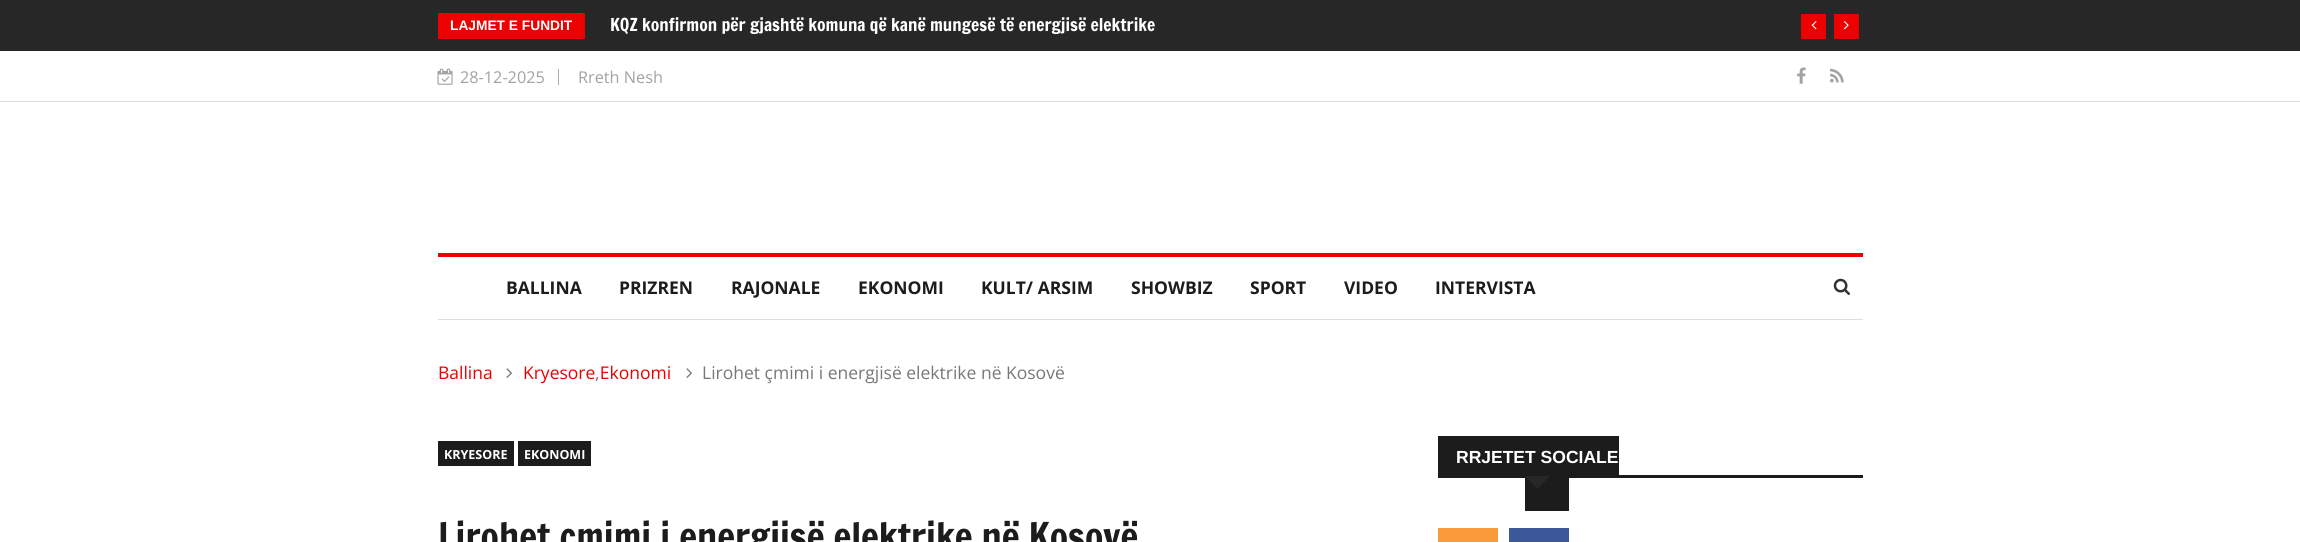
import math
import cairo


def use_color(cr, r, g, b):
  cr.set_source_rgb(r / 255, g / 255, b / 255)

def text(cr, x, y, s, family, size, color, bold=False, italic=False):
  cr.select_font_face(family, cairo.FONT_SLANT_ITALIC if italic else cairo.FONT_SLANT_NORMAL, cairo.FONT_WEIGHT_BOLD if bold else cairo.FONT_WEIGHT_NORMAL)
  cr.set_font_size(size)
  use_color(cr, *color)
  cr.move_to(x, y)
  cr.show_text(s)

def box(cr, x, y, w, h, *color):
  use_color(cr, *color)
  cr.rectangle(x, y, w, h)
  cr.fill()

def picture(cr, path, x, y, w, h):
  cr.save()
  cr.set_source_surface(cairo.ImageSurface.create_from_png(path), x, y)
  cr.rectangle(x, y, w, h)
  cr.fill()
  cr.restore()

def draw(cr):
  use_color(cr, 255, 255, 255)
  cr.paint()
  box(cr, 0, 0, 2300, 51, 39, 39, 39)
  box(cr, 438, 13, 147, 26, 236, 0, 0)
  box(cr, 1801, 14, 25, 25, 236, 0, 0)
  picture(cr, "img_01.png", 1811, 21, 6, 9)
  box(cr, 1834, 14, 25, 25, 236, 0, 0)
  picture(cr, "img_02.png", 1843, 21, 6, 9)
  box(cr, 0, 101, 2300, 1, 222, 222, 222)
  box(cr, 558, 69, 1, 16, 172, 172, 172)
  picture(cr, "img_03.png", 437, 68, 16, 17)
  picture(cr, "img_04.png", 1797, 67, 9, 17)
  picture(cr, "img_05.png", 1830, 68, 14, 15)
  box(cr, 438, 253, 1425, 4, 236, 0, 0)
  box(cr, 438, 319, 1425, 1, 222, 222, 222)
  picture(cr, "img_06.png", 1833, 278, 17, 17)
  picture(cr, "img_07.png", 506, 368, 6, 10)
  picture(cr, "img_07.png", 686, 368, 6, 10)
  box(cr, 438, 441, 76, 25, 28, 28, 28)
  box(cr, 518, 441, 73, 25, 28, 28, 28)
  box(cr, 1438, 475, 425, 3, 28, 28, 28)
  box(cr, 1438, 436, 181, 39, 28, 28, 28)
  box(cr, 1525, 478, 44, 33, 28, 28, 28)
  use_color(cr, 39, 39, 39)
  cr.new_path()
  cr.move_to(1525, 476)
  cr.line_to(1550, 476)
  cr.line_to(1537.5, 489)
  cr.close_path()
  cr.fill()
  box(cr, 1438, 528, 60, 14, 250, 155, 57)
  box(cr, 1509, 528, 60, 14, 59, 89, 152)
  text(cr, 450, 30, "LAJMET E FUNDIT", "Arimo", 13.75, (255, 255, 255), bold=True)
  text(cr, 610, 31, "KQZ konfirmon për gjashtë komuna që kanë mungesë të energjisë elektrike", "Francois One", 17.5, (255, 255, 255))
  text(cr, 460, 83, "28-12-2025", "Open Sans", 16.25, (163, 163, 163))
  text(cr, 578, 83, "Rreth Nesh", "Open Sans", 16.25, (163, 163, 163))
  text(cr, 506, 294, "BALLINA", "Open Sans", 17.5, (28, 28, 28), bold=True)
  text(cr, 619, 294, "PRIZREN", "Open Sans", 17.5, (28, 28, 28), bold=True)
  text(cr, 731, 294, "RAJONALE", "Open Sans", 17.5, (28, 28, 28), bold=True)
  text(cr, 858, 294, "EKONOMI", "Open Sans", 17.5, (28, 28, 28), bold=True)
  text(cr, 981, 294, "KULT/ ARSIM", "Open Sans", 17.5, (28, 28, 28), bold=True)
  text(cr, 1131, 294, "SHOWBIZ", "Open Sans", 17.5, (28, 28, 28), bold=True)
  text(cr, 1250, 294, "SPORT", "Open Sans", 17.5, (28, 28, 28), bold=True)
  text(cr, 1344, 294, "VIDEO", "Open Sans", 17.5, (28, 28, 28), bold=True)
  text(cr, 1435, 294, "INTERVISTA", "Open Sans", 17.5, (28, 28, 28), bold=True)
  text(cr, 438, 379, "Ballina", "Open Sans", 17.5, (236, 0, 0))
  text(cr, 523, 379, "Kryesore Ekonomi", "Open Sans", 17.5, (236, 0, 0))
  text(cr, 595, 379, ",", "Open Sans", 17.5, (119, 119, 119))
  text(cr, 702, 379, "Lirohet çmimi i energjisë elektrike në Kosovë", "Open Sans", 17.5, (119, 119, 119))
  text(cr, 444, 459, "KRYESORE", "Open Sans", 12.5, (255, 255, 255), bold=True)
  text(cr, 524, 459, "EKONOMI", "Open Sans", 12.5, (255, 255, 255), bold=True)
  text(cr, 438, 550, "Lirohet çmimi i energjisë elektrike në Kosovë", "Francois One", 37.5, (28, 28, 28))
  text(cr, 1456, 463, "RRJETET SOCIALE", "Arimo", 17.5, (255, 255, 255), bold=True)


surface = cairo.ImageSurface(cairo.FORMAT_RGB24, 2300, 542)
cr = cairo.Context(surface)
options = cairo.FontOptions()
options.set_hint_metrics(cairo.HINT_METRICS_OFF)
options.set_hint_style(cairo.HINT_STYLE_NONE)
cr.set_font_options(options)
cr.set_miter_limit(4)
draw(cr)
surface.write_to_png("out.png")
